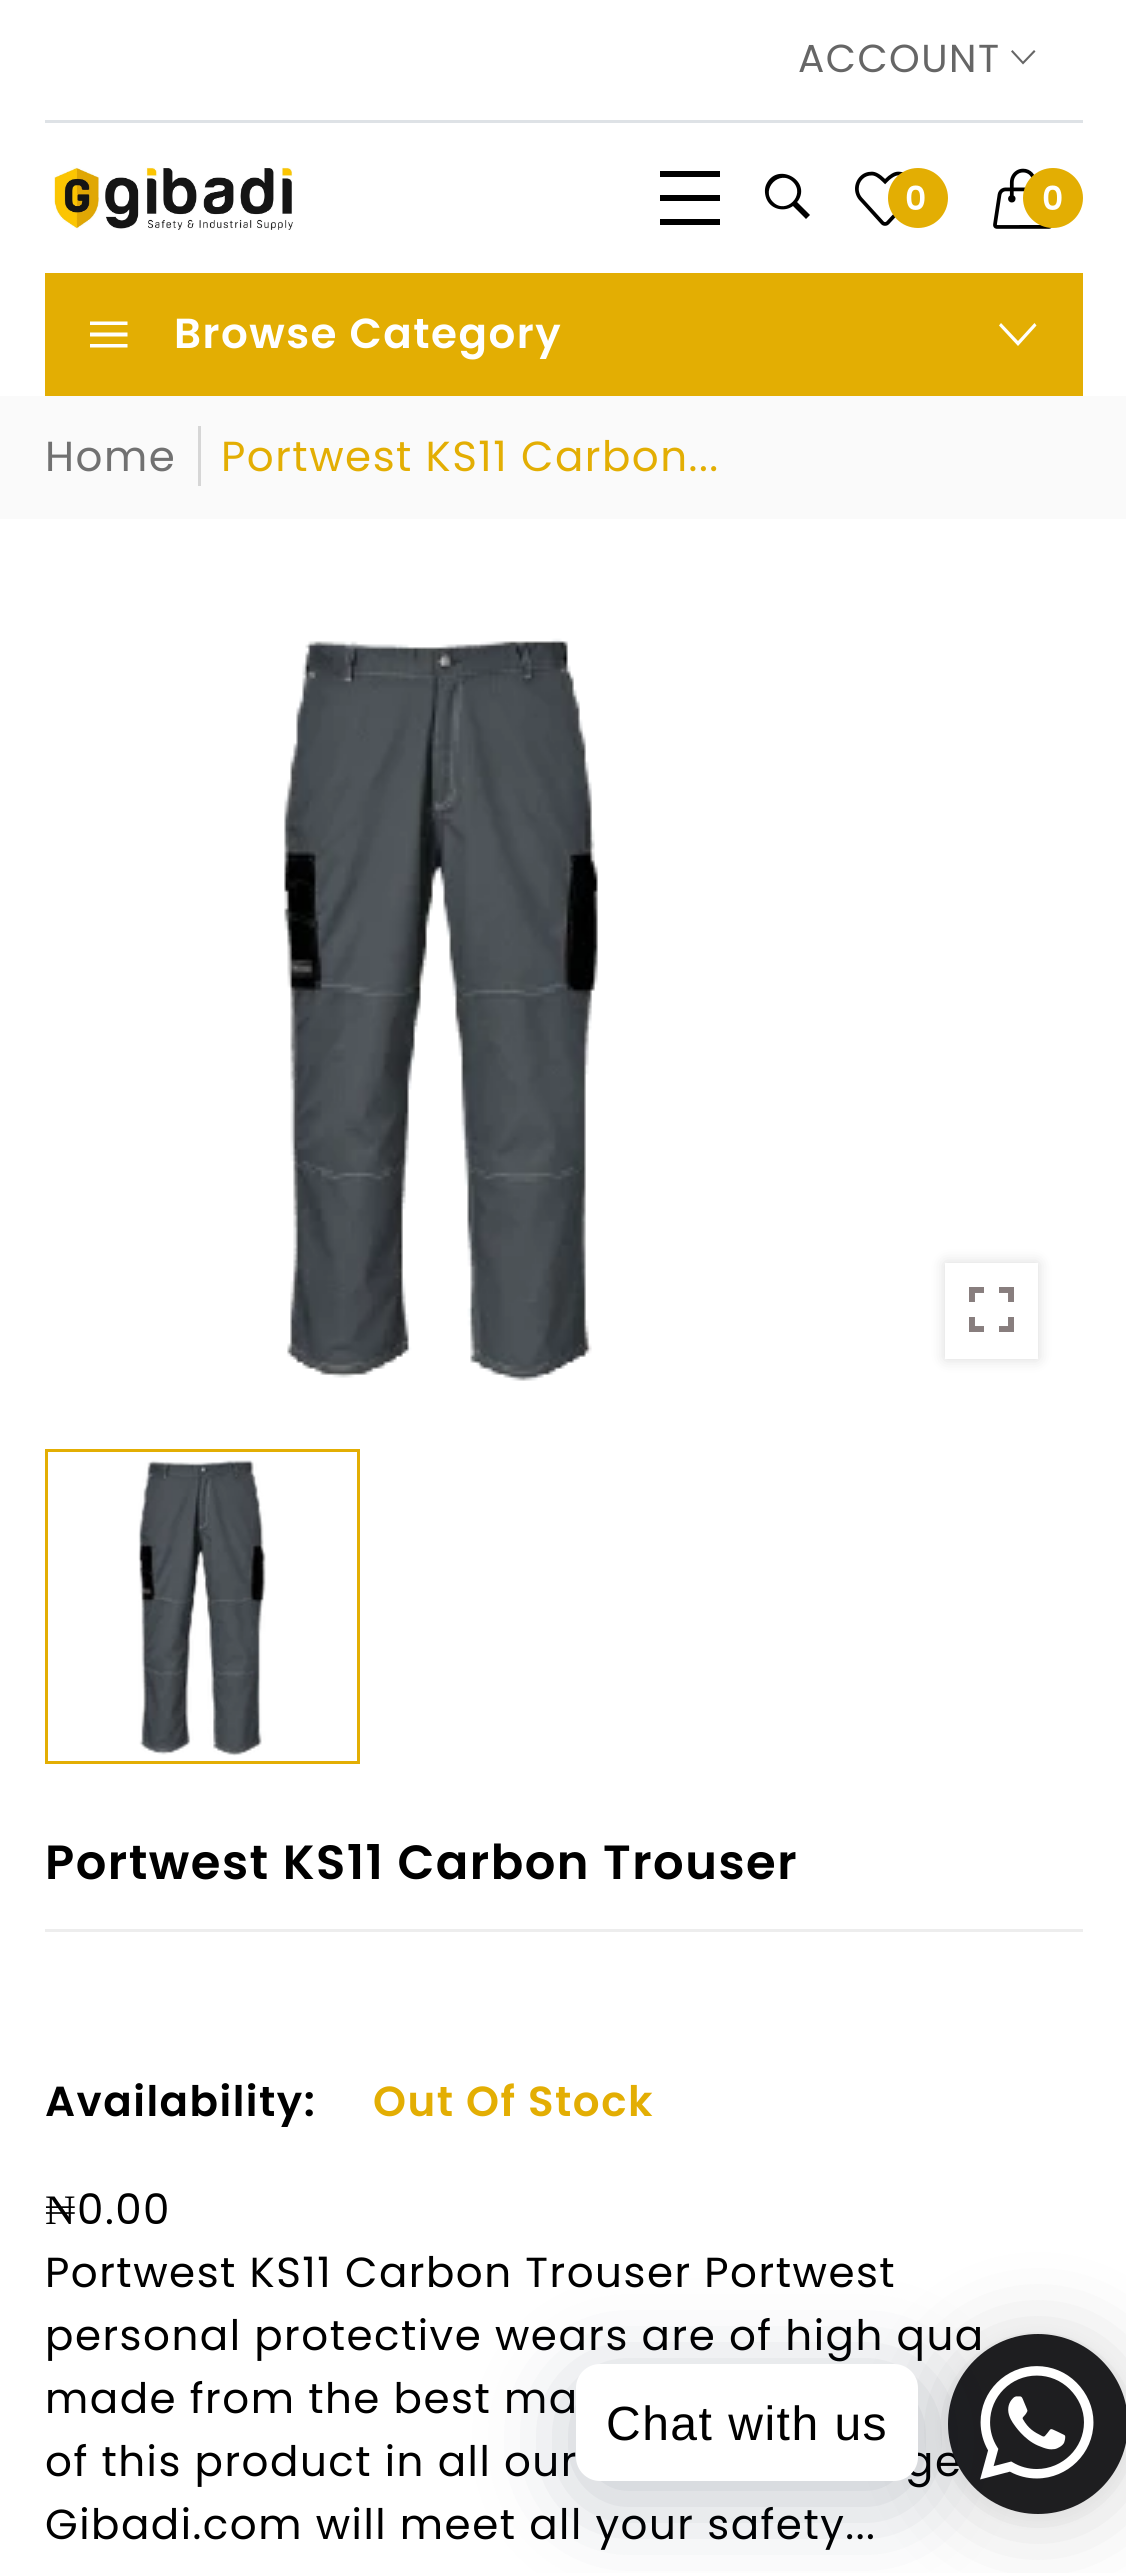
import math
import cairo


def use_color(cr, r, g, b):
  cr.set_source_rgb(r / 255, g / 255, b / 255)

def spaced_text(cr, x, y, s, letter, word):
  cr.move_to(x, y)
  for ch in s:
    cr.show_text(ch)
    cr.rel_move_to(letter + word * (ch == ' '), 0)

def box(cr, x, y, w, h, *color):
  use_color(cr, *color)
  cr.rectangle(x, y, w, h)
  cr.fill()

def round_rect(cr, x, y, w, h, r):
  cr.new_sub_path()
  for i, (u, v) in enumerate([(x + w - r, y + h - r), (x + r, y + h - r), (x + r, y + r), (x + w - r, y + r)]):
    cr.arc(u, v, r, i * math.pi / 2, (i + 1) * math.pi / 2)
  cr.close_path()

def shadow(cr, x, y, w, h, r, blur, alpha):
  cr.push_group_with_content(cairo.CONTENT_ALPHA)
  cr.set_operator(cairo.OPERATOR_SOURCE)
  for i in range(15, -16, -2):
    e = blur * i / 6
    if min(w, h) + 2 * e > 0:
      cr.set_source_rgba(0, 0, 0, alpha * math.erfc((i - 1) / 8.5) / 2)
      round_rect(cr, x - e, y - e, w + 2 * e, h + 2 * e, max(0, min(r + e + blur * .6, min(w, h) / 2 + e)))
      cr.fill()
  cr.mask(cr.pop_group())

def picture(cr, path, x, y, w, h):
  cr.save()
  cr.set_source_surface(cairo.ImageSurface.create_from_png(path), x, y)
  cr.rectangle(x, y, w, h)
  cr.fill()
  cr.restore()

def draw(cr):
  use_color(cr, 255, 255, 255)
  cr.paint()
  box(cr, 45, 120, 1038, 3, 222, 226, 230)
  use_color(cr, 102, 102, 102)
  cr.new_path()
  cr.move_to(1034, 50)
  cr.line_to(1035.5, 51.5)
  cr.line_to(1023, 64.5)
  cr.line_to(1011, 51.5)
  cr.line_to(1012.5, 50)
  cr.line_to(1023, 61.5)
  cr.close_path()
  cr.fill()
  picture(cr, "img_01.png", 54, 167, 240, 63)
  box(cr, 660, 195, 60, 6, 0, 0, 0)
  box(cr, 660, 171, 60, 6, 0, 0, 0)
  box(cr, 660, 219, 60, 6, 0, 0, 0)
  cr.new_path()
  cr.move_to(798, 201)
  cr.line_to(797, 202)
  cr.line_to(810, 215)
  cr.line_to(806, 219)
  cr.line_to(793, 206)
  cr.curve_to(785, 212, 772, 210, 767, 200)
  cr.curve_to(765, 196, 764, 190, 766, 185)
  cr.curve_to(776, 161, 812, 180, 798, 201)
  cr.close_path()
  cr.move_to(793, 182)
  cr.curve_to(780, 169, 760, 189, 773, 202)
  cr.curve_to(786, 215, 806, 195, 793, 182)
  cr.close_path()
  cr.fill()
  picture(cr, "img_02.png", 855, 171, 48, 55)
  use_color(cr, 227, 174, 3)
  cr.arc(918, 198, 30, 0, 2 * math.pi)
  cr.fill()
  picture(cr, "img_03.png", 993, 168, 60, 61)
  cr.arc(1053, 198, 30, 0, 2 * math.pi)
  cr.fill()
  box(cr, 45, 273, 1038, 123, 227, 174, 3)
  use_color(cr, 255, 255, 255)
  cr.new_path()
  cr.move_to(90, 336.5)
  cr.line_to(90, 332.5)
  cr.line_to(127.5, 332.5)
  cr.line_to(127.5, 336.5)
  cr.close_path()
  cr.move_to(90, 325)
  cr.line_to(90, 321.5)
  cr.line_to(127.5, 321.5)
  cr.line_to(127.5, 325)
  cr.close_path()
  cr.move_to(90, 347.5)
  cr.line_to(90, 344)
  cr.line_to(127.5, 344)
  cr.line_to(127.5, 347.5)
  cr.close_path()
  cr.fill()
  cr.new_path()
  cr.move_to(1034.5, 323)
  cr.line_to(1036.5, 325.5)
  cr.line_to(1018, 346)
  cr.line_to(999, 325.5)
  cr.line_to(1001, 323)
  cr.line_to(1018, 341)
  cr.close_path()
  cr.fill()
  box(cr, 0, 396, 1126, 123, 250, 250, 250)
  box(cr, 198, 426, 3, 60, 214, 214, 214)
  picture(cr, "img_04.png", 284, 638, 314, 743)
  cr.save()
  cr.set_fill_rule(cairo.FILL_RULE_EVEN_ODD)
  cr.new_path()
  cr.move_to(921, 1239)
  cr.line_to(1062, 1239)
  cr.line_to(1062, 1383)
  cr.line_to(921, 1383)
  cr.close_path()
  cr.move_to(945, 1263)
  cr.line_to(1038, 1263)
  cr.line_to(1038, 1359)
  cr.line_to(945, 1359)
  cr.close_path()
  cr.clip()
  use_color(cr, 0, 0, 0)
  shadow(cr, 945, 1263, 93, 96, 0, 7.5, 0.15)
  cr.restore()
  picture(cr, "img_05.png", 969, 1287, 45, 45)
  picture(cr, "img_06.png", 138, 1460, 128, 296)
  cr.rectangle(46.5, 1450.5, 312, 312)
  use_color(cr, 227, 174, 3)
  cr.set_line_width(3)
  cr.stroke()
  box(cr, 45, 1929, 1038, 3, 237, 237, 237)
  use_color(cr, 0, 0, 0)
  shadow(cr, 948, 2340, 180, 180, 90, 48, 0.16)
  shadow(cr, 948, 2337, 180, 180, 90, 9, 0.06)
  cr.select_font_face("Poppins")
  cr.set_font_size(39)
  use_color(cr, 102, 102, 102)
  spaced_text(cr, 798, 72, "ACCOUNT", 1.5, 0)
  cr.select_font_face("Poppins SemiBold")
  cr.set_font_size(33)
  use_color(cr, 255, 255, 255)
  spaced_text(cr, 905, 210, "0", 1.5, 0)
  spaced_text(cr, 1042, 210, "0", 1.5, 0)
  cr.set_font_size(42)
  spaced_text(cr, 174, 348, "Browse Category", 1.5, 0)
  cr.select_font_face("Poppins")
  use_color(cr, 113, 113, 113)
  spaced_text(cr, 45, 471, "Home", 1.5, 0)
  use_color(cr, 227, 174, 3)
  spaced_text(cr, 221, 471, "Portwest KS11 Carbon...", 1.5, 0)
  cr.select_font_face("Poppins SemiBold")
  cr.set_font_size(48)
  use_color(cr, 0, 0, 0)
  spaced_text(cr, 45, 1879, "Portwest KS11 Carbon Trouser", 1.5, 0)
  cr.set_font_size(42)
  spaced_text(cr, 45, 2116, "Availability:", 1.5, 0)
  use_color(cr, 227, 174, 3)
  spaced_text(cr, 373, 2116, "Out Of Stock", 1.5, 0)
  cr.select_font_face("Liberation Serif")
  use_color(cr, 0, 0, 0)
  spaced_text(cr, 45, 2224, "₦", 1.5, 0)
  cr.select_font_face("Poppins")
  spaced_text(cr, 77, 2224, "0.00", 1.5, 0)
  spaced_text(cr, 45, 2287, "Portwest KS11 Carbon Trouser Portwest", 1.5, 0)
  spaced_text(cr, 45, 2350, "personal protective wears are of high qua", 1.5, 0)
  spaced_text(cr, 45, 2413, "made from the best ma", 1.5, 0)
  spaced_text(cr, 45, 2476, "of this product in all our", 1.5, 0)
  spaced_text(cr, 905, 2476, "ge", 1.5, 0)
  spaced_text(cr, 45, 2539, "Gibadi.com will meet all your safety...", 1.5, 0)
  use_color(cr, 30, 30, 32)
  cr.new_path()
  cr.arc(1038, 2424, 90, 0, 2 * math.pi)
  cr.fill()
  use_color(cr, 0, 18, 46)
  shadow(cr, 576, 2382, 342, 117, 24, 48, 0.24)
  use_color(cr, 255, 255, 255)
  round_rect(cr, 576, 2364, 342, 117, 24)
  cr.fill()
  cr.select_font_face("Liberation Sans")
  cr.set_font_size(48)
  use_color(cr, 0, 0, 0)
  spaced_text(cr, 606, 2440, "Chat with us", 1.5, 0)
  picture(cr, "img_07.png", 980, 2366, 114, 114)


surface = cairo.ImageSurface(cairo.FORMAT_RGB24, 1126, 2573)
cr = cairo.Context(surface)
options = cairo.FontOptions()
options.set_hint_metrics(cairo.HINT_METRICS_OFF)
options.set_hint_style(cairo.HINT_STYLE_NONE)
cr.set_font_options(options)
cr.set_miter_limit(4)
draw(cr)
surface.write_to_png("out.png")
